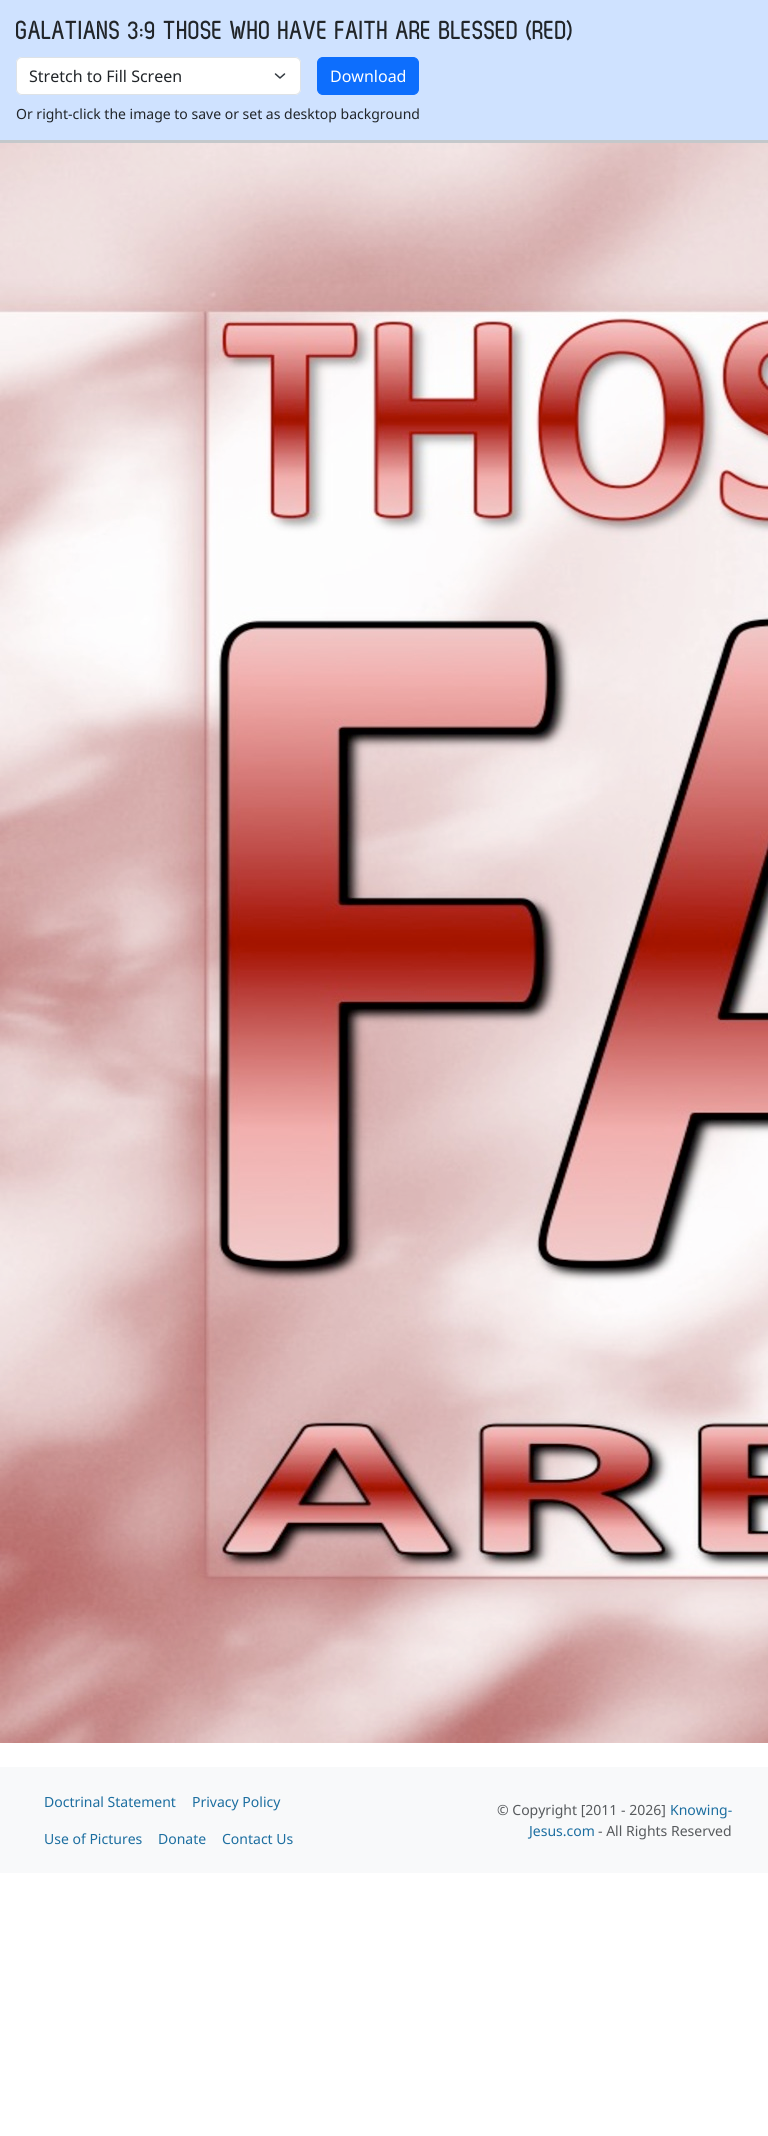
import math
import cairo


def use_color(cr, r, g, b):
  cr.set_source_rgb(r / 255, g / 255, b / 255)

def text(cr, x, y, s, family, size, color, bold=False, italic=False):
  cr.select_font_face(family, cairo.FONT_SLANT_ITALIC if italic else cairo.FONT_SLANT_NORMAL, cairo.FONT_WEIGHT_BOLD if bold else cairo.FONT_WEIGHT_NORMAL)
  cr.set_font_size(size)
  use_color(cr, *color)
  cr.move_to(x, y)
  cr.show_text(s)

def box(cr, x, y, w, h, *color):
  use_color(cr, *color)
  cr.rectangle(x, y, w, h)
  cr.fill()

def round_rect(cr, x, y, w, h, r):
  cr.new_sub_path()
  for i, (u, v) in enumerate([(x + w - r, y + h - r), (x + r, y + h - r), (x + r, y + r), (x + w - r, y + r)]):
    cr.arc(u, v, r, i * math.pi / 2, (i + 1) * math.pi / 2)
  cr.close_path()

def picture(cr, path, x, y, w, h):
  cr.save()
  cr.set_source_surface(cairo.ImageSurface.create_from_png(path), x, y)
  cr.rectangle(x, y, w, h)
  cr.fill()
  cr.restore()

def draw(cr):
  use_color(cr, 255, 255, 255)
  cr.paint()
  box(cr, 0, 0, 768, 140, 207, 226, 255)
  box(cr, 0, 140, 768, 3, 196, 200, 203)
  use_color(cr, 255, 255, 255)
  round_rect(cr, 16, 57, 285, 38, 6)
  cr.fill()
  cr.new_path()
  cr.move_to(275.5, 74)
  cr.line_to(280, 78)
  cr.line_to(284.5, 74)
  use_color(cr, 52, 58, 64)
  cr.set_line_width(1.5)
  cr.set_line_cap(cairo.LINE_CAP_ROUND)
  cr.set_line_join(cairo.LINE_JOIN_ROUND)
  cr.stroke()
  round_rect(cr, 16.5, 57.5, 284, 37, 5.5)
  use_color(cr, 222, 226, 230)
  cr.set_line_width(1)
  cr.set_line_cap(cairo.LINE_CAP_BUTT)
  cr.set_line_join(cairo.LINE_JOIN_MITER)
  cr.stroke()
  use_color(cr, 13, 110, 253)
  round_rect(cr, 317.5, 57.5, 101, 37, 5.5)
  cr.fill_preserve()
  cr.stroke()
  picture(cr, "img_01.png", 0, 143, 768, 1600)
  box(cr, 0, 1767, 768, 106, 248, 249, 250)
  text(cr, 16, 39, "GALATIANS 3:9 THOSE WHO HAVE FAITH ARE BLESSED (RED)", "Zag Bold", 26, (33, 37, 41), bold=True)
  text(cr, 29, 82, "Stretch to Fill Screen", "Noto Sans", 16, (33, 37, 41))
  text(cr, 330, 82, "Download", "Noto Sans", 16, (255, 255, 255))
  text(cr, 16, 119, "Or right-click the image to save or set as desktop background", "Noto Sans", 14, (33, 37, 41))
  text(cr, 44, 1807, "Doctrinal Statement", "Noto Sans", 14, (28, 110, 160))
  text(cr, 192, 1807, "Privacy Policy", "Noto Sans", 14, (28, 110, 160))
  text(cr, 44, 1844, "Use of Pictures", "Noto Sans", 14, (28, 110, 160))
  text(cr, 158, 1844, "Donate", "Noto Sans", 14, (28, 110, 160))
  text(cr, 222, 1844, "Contact Us", "Noto Sans", 14, (28, 110, 160))
  text(cr, 497, 1815, "© Copyright [2011 - 2026]", "Noto Sans", 14, (87, 90, 93))
  text(cr, 670, 1815, "Knowing-", "Noto Sans", 14, (28, 110, 160))
  text(cr, 529, 1836, "Jesus.com", "Noto Sans", 14, (28, 110, 160))
  text(cr, 598, 1836, "- All Rights Reserved", "Noto Sans", 14, (87, 90, 93))


surface = cairo.ImageSurface(cairo.FORMAT_RGB24, 768, 2136)
cr = cairo.Context(surface)
options = cairo.FontOptions()
options.set_hint_metrics(cairo.HINT_METRICS_OFF)
options.set_hint_style(cairo.HINT_STYLE_NONE)
cr.set_font_options(options)
cr.set_miter_limit(4)
draw(cr)
surface.write_to_png("out.png")
